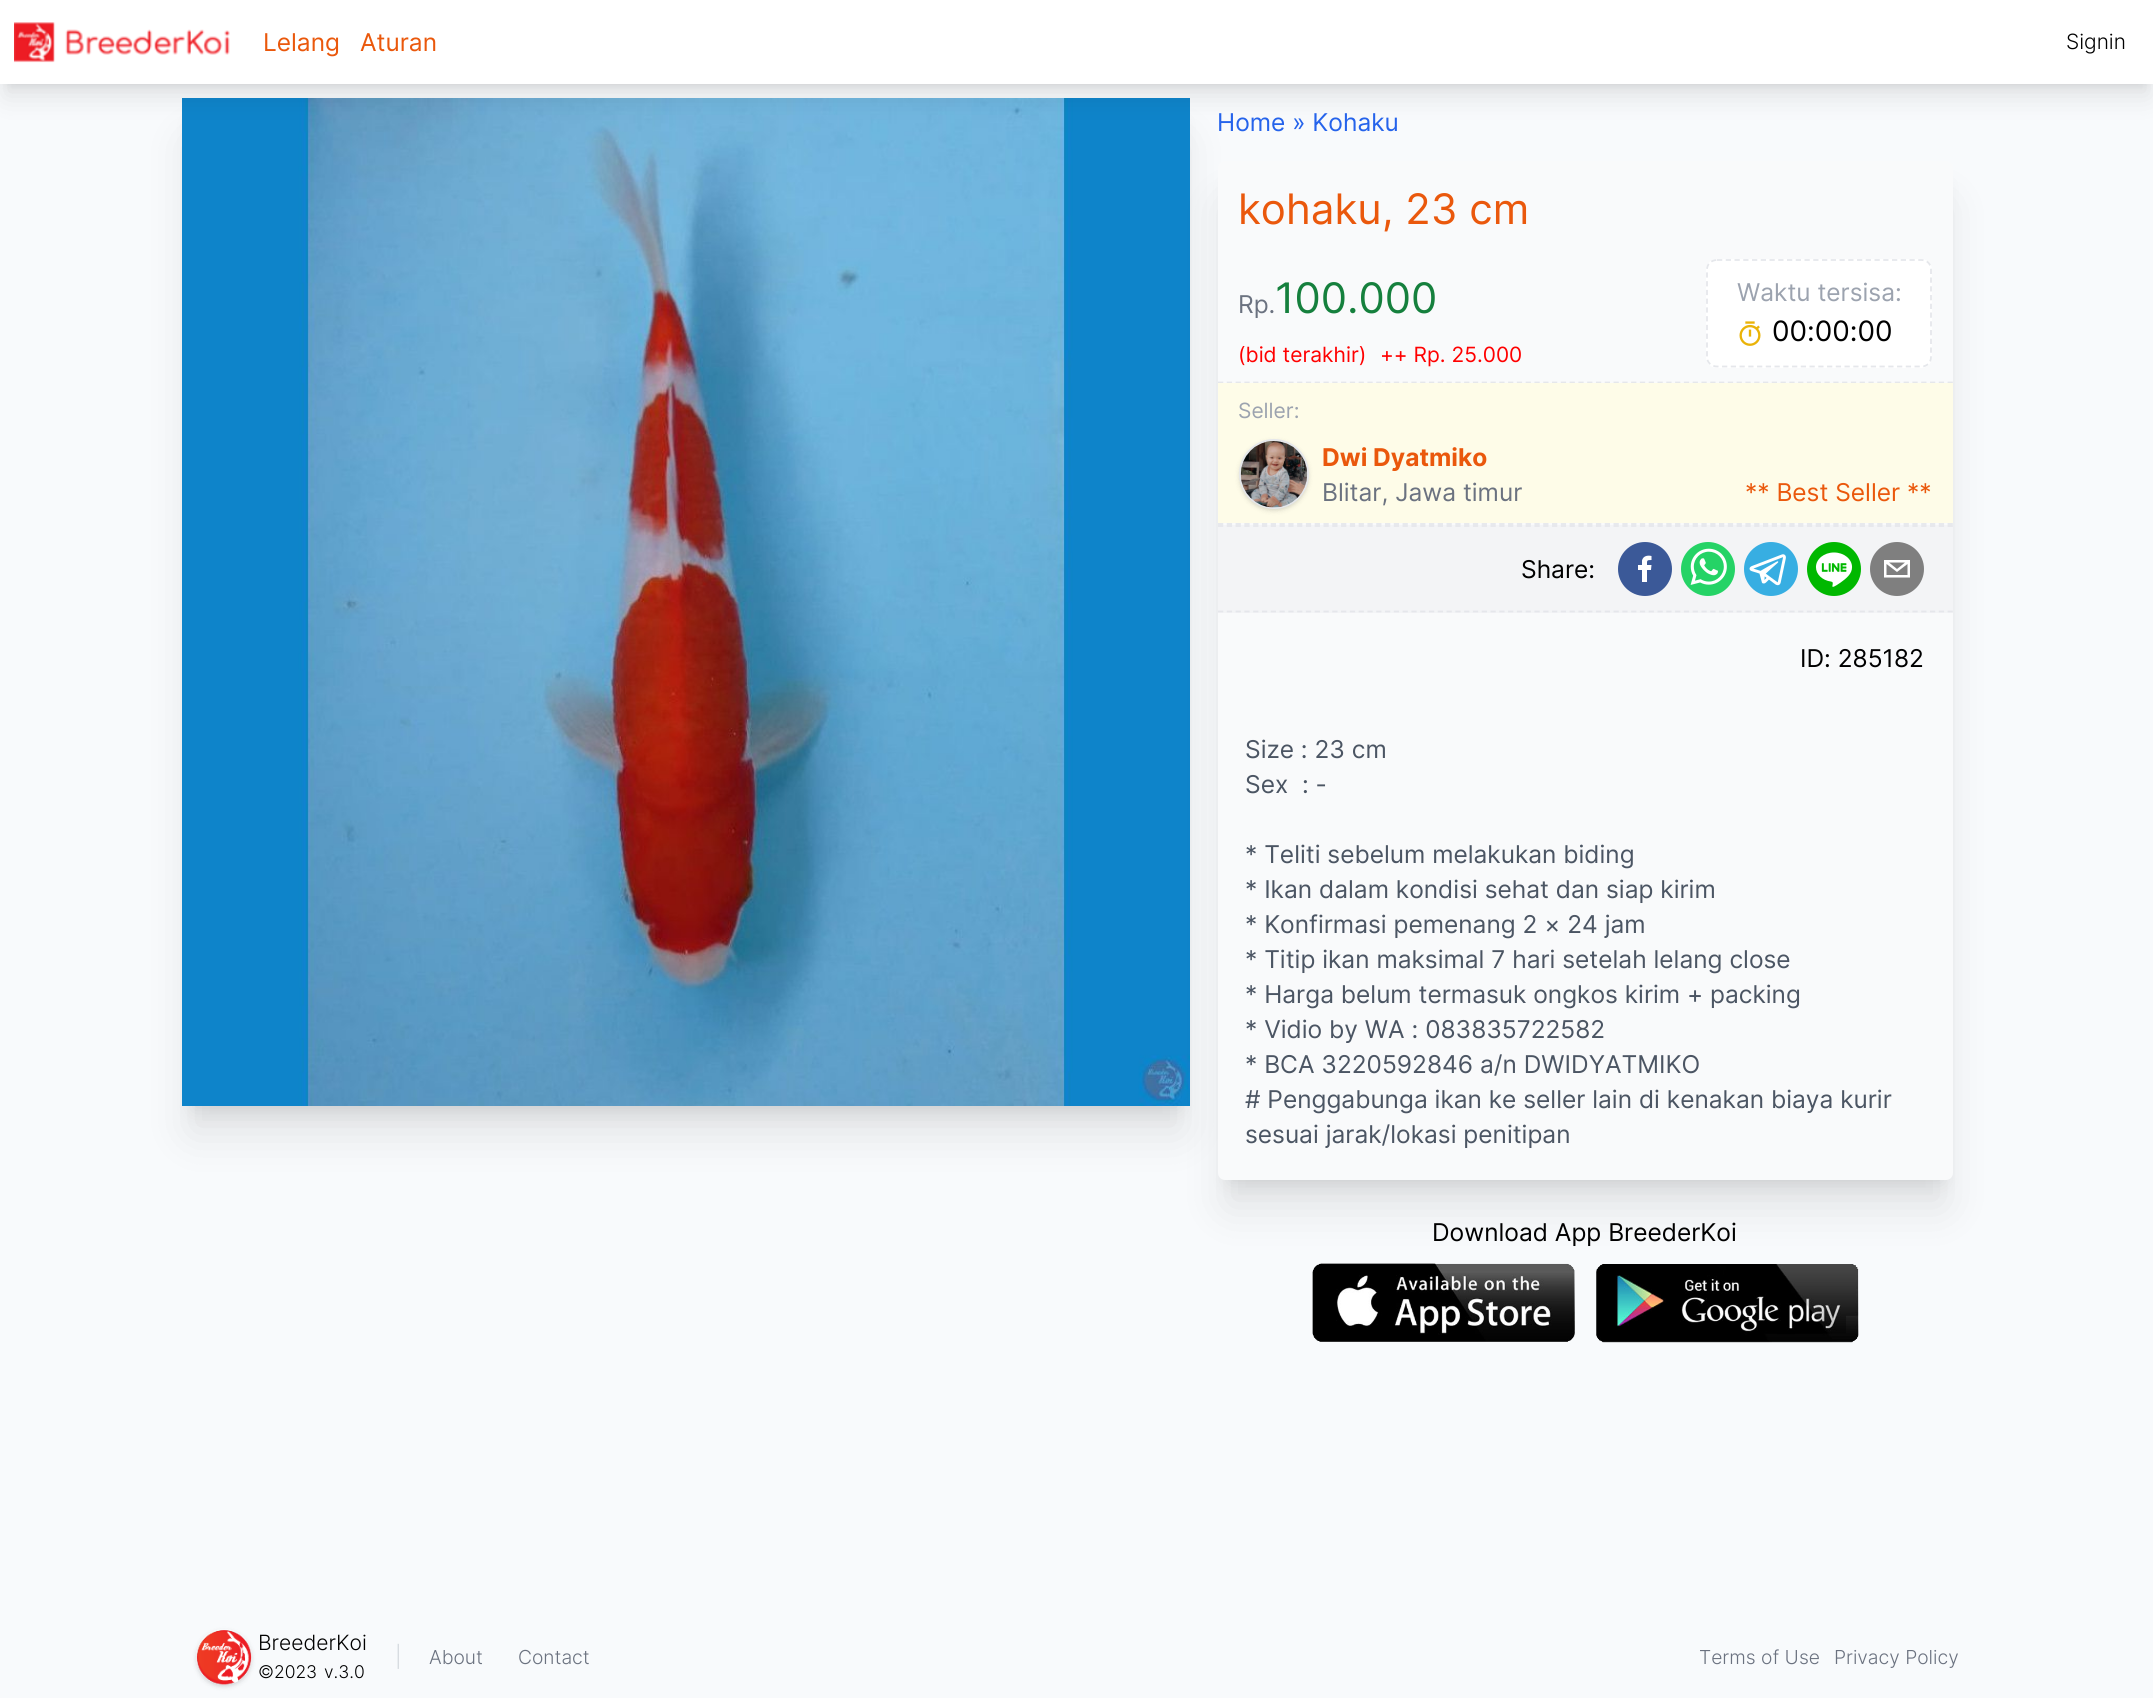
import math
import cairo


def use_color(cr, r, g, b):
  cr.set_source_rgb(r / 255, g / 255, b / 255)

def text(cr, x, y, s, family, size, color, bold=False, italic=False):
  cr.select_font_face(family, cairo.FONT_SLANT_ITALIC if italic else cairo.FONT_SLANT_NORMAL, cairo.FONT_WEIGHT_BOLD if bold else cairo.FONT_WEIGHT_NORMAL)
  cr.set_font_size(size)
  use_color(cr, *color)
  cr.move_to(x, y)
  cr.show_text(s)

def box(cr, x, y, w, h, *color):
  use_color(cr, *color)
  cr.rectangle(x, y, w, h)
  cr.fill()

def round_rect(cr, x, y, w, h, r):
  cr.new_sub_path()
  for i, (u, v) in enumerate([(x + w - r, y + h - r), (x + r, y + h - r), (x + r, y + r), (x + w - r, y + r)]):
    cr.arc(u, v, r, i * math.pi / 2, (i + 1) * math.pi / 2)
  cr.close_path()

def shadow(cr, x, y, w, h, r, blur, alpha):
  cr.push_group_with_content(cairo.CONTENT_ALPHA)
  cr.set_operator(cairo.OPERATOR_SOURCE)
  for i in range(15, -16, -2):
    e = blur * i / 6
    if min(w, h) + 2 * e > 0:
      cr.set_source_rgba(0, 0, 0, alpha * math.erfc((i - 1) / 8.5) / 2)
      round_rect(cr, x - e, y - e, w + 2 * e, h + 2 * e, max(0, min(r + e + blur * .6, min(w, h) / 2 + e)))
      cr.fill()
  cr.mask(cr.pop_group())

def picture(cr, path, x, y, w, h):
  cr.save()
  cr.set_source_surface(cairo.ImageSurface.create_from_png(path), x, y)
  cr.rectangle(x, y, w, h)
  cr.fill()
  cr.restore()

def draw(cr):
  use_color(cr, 248, 250, 252)
  cr.paint()
  use_color(cr, 0, 0, 0)
  shadow(cr, 193, 123, 987, 987, 0, 9, 0.1)
  shadow(cr, 191, 142, 990, 990, 0, 22, 0.1)
  picture(cr, "img_02.png", 182, 98, 1008, 1008)
  shadow(cr, 7, 14, 2140, 70, 0, 5, 0.1)
  shadow(cr, 5, 23, 2144, 73, 0, 13, 0.1)
  box(cr, 0, 0, 2153, 84, 255, 255, 255)
  picture(cr, "img_01.png", 14, 22, 216, 41)
  use_color(cr, 0, 0, 0)
  shadow(cr, 1229, 186, 714, 997, 0, 9, 0.1)
  shadow(cr, 1227, 205, 717, 1001, 0, 22, 0.1)
  use_color(cr, 249, 250, 251)
  round_rect(cr, 1218, 161, 735, 1019, 7)
  cr.fill()
  use_color(cr, 255, 255, 255)
  round_rect(cr, 1706, 259, 226, 109, 11)
  cr.fill()
  cr.new_path()
  cr.move_to(1717, 260)
  cr.line_to(1921.5, 260)
  cr.curve_to(1927, 260, 1931, 264, 1931, 269.5)
  cr.line_to(1931, 357)
  cr.curve_to(1931, 362.5, 1927, 366.5, 1921.5, 366.5)
  cr.line_to(1717, 366.5)
  cr.curve_to(1711.5, 366.5, 1707, 362.5, 1707, 357)
  cr.line_to(1707, 269.5)
  cr.curve_to(1707, 264, 1711.5, 260, 1717, 260)
  cr.close_path()
  use_color(cr, 229, 231, 235)
  cr.set_line_width(1.8)
  cr.set_dash([5.25, 3.5])
  cr.stroke()
  picture(cr, "img_03.png", 1739, 321, 22, 25)
  cr.new_path()
  cr.move_to(1218, 382.5)
  cr.line_to(1953, 382.5)
  cr.set_dash([5.25, 3.54])
  cr.stroke()
  cr.new_path()
  cr.move_to(1218, 524)
  cr.line_to(1953, 524)
  cr.stroke()
  box(cr, 1218, 383, 735, 140, 254, 252, 232)
  use_color(cr, 0, 0, 0)
  shadow(cr, 1241, 443, 66, 66, 33, 2, 0.1)
  shadow(cr, 1239, 441, 70, 70, 35, 2.5, 0.1)
  cr.arc(1274, 474, 34, 0, 2 * math.pi)
  use_color(cr, 229, 231, 235)
  cr.set_line_width(2)
  cr.set_dash([])
  cr.stroke()
  picture(cr, "img_04.png", 1240, 441, 68, 67)
  box(cr, 1218, 525, 735, 88, 243, 244, 246)
  cr.new_path()
  cr.move_to(1218, 526)
  cr.line_to(1953, 526)
  use_color(cr, 229, 231, 235)
  cr.set_line_width(1.8)
  cr.set_dash([5.25, 3.54])
  cr.stroke()
  cr.new_path()
  cr.move_to(1218, 611.5)
  cr.line_to(1953, 611.5)
  cr.stroke()
  use_color(cr, 59, 89, 152)
  cr.arc(1645, 569, 27, 0, 2 * math.pi)
  cr.fill()
  use_color(cr, 255, 255, 255)
  cr.new_path()
  cr.move_to(1647, 582)
  cr.line_to(1647, 570)
  cr.line_to(1651, 570)
  cr.line_to(1651.5, 565)
  cr.line_to(1647, 565)
  cr.curve_to(1647, 560.5, 1646.5, 560, 1651.5, 560)
  cr.line_to(1651.5, 556)
  cr.curve_to(1647.5, 555, 1643, 556, 1642, 560.5)
  cr.line_to(1642, 565)
  cr.line_to(1638, 565)
  cr.line_to(1638, 570)
  cr.line_to(1642, 570)
  cr.line_to(1642, 582)
  cr.close_path()
  cr.fill()
  picture(cr, "img_05.png", 1681, 542, 54, 54)
  picture(cr, "img_06.png", 1744, 542, 54, 54)
  picture(cr, "img_07.png", 1807, 542, 54, 54)
  use_color(cr, 127, 127, 127)
  cr.arc(1897, 569, 27, 0, 2 * math.pi)
  cr.fill()
  use_color(cr, 255, 255, 255)
  cr.new_path()
  cr.move_to(1884, 560)
  cr.line_to(1884, 577.5)
  cr.line_to(1910, 577.5)
  cr.line_to(1910, 560)
  cr.close_path()
  cr.move_to(1905, 562.5)
  cr.line_to(1897, 569)
  cr.line_to(1889, 562.5)
  cr.close_path()
  cr.move_to(1886.5, 575)
  cr.line_to(1886.5, 564)
  cr.line_to(1897, 572)
  cr.line_to(1907.5, 564)
  cr.line_to(1907.5, 575)
  cr.close_path()
  cr.fill()
  picture(cr, "img_08.png", 1312, 1263, 263, 79)
  picture(cr, "img_09.png", 1596, 1264, 263, 79)
  use_color(cr, 0, 0, 0)
  shadow(cr, 198, 1633, 52, 52, 26, 2, 0.1)
  cr.save()
  cr.set_fill_rule(cairo.FILL_RULE_EVEN_ODD)
  cr.new_path()
  cr.move_to(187, 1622)
  cr.line_to(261, 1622)
  cr.line_to(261, 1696)
  cr.line_to(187, 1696)
  cr.close_path()
  cr.move_to(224, 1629)
  cr.curve_to(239.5, 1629, 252, 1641.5, 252, 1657)
  cr.curve_to(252, 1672.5, 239.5, 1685, 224, 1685)
  cr.curve_to(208.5, 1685, 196, 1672.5, 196, 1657)
  cr.curve_to(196, 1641.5, 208.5, 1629, 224, 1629)
  cr.close_path()
  cr.clip()
  shadow(cr, 196, 1631, 56, 56, 28, 2.5, 0.1)
  cr.restore()
  picture(cr, "img_10.png", 196, 1630, 56, 55)
  text(cr, 263, 51, "Lelang", "Inter", 24.5, (234, 88, 12))
  text(cr, 360, 51, "Aturan", "Inter", 24.5, (234, 88, 12))
  text(cr, 2066, 49, "Signin", "Inter Light", 21, (0, 0, 0))
  text(cr, 1217, 131, "Home » Kohaku", "Inter", 24.5, (37, 99, 235))
  text(cr, 1238, 224, "kohaku, 23 cm", "Inter", 42, (234, 88, 12))
  text(cr, 1238, 313, "Rp.", "Inter", 24.5, (107, 114, 128))
  text(cr, 1275, 313, "100.000", "Inter", 42, (21, 128, 61))
  text(cr, 1238, 362, "(bid terakhir)", "Inter", 21, (255, 0, 0))
  text(cr, 1380, 362, "++ Rp. 25.000", "Inter", 21, (255, 0, 0))
  text(cr, 1737, 301, "Waktu tersisa:", "Inter", 24.5, (156, 163, 175))
  text(cr, 1772, 341, "00:00:00", "Inter", 28, (0, 0, 0))
  text(cr, 1238, 418, "Seller:", "Inter", 21, (156, 163, 175))
  text(cr, 1322, 466, "Dwi Dyatmiko", "Inter", 24.5, (234, 88, 12), bold=True)
  text(cr, 1322, 501, "Blitar, Jawa timur", "Inter", 24.5, (107, 114, 128))
  text(cr, 1745, 501, "** Best Seller **", "Inter", 24.5, (234, 88, 12))
  text(cr, 1521, 578, "Share:", "Inter", 24.5, (0, 0, 0))
  text(cr, 1800, 667, "ID: 285182", "Inter", 24.5, (0, 0, 0))
  text(cr, 1245, 758, "Size : 23 cm", "Inter", 24.5, (75, 85, 99))
  text(cr, 1245, 793, "Sex  : -", "Inter", 24.5, (75, 85, 99))
  text(cr, 1245, 863, "* Teliti sebelum melakukan biding", "Inter", 24.5, (75, 85, 99))
  text(cr, 1245, 898, "* Ikan dalam kondisi sehat dan siap kirim", "Inter", 24.5, (75, 85, 99))
  text(cr, 1245, 933, "* Konfirmasi pemenang 2 × 24 jam", "Inter", 24.5, (75, 85, 99))
  text(cr, 1245, 968, "* Titip ikan maksimal 7 hari setelah lelang close", "Inter", 24.5, (75, 85, 99))
  text(cr, 1245, 1003, "* Harga belum termasuk ongkos kirim + packing", "Inter", 24.5, (75, 85, 99))
  text(cr, 1245, 1038, "* Vidio by WA : 083835722582", "Inter", 24.5, (75, 85, 99))
  text(cr, 1245, 1073, "* BCA 3220592846 a/n DWIDYATMIKO", "Inter", 24.5, (75, 85, 99))
  text(cr, 1245, 1108, "# Penggabunga ikan ke seller lain di kenakan biaya kurir", "Inter", 24.5, (75, 85, 99))
  text(cr, 1245, 1143, "sesuai jarak/lokasi penitipan", "Inter", 24.5, (75, 85, 99))
  text(cr, 1432, 1241, "Download App BreederKoi", "Inter", 24.5, (0, 0, 0))
  text(cr, 258, 1650, "BreederKoi", "Inter Light", 21, (0, 0, 0))
  text(cr, 258, 1678, "©2023", "Inter Light", 17.5, (0, 0, 0))
  text(cr, 324, 1678, "v.3.0", "Inter Light", 17.5, (0, 0, 0))
  text(cr, 395, 1664, "|", "Inter Light", 21, (209, 213, 219))
  text(cr, 429, 1664, "About", "Inter Light", 19.25, (107, 114, 128))
  text(cr, 518, 1664, "Contact", "Inter Light", 19.25, (107, 114, 128))
  text(cr, 1699, 1664, "Terms of Use", "Inter Light", 19.25, (107, 114, 128))
  text(cr, 1834, 1664, "Privacy Policy", "Inter Light", 19.25, (107, 114, 128))


surface = cairo.ImageSurface(cairo.FORMAT_RGB24, 2153, 1698)
cr = cairo.Context(surface)
options = cairo.FontOptions()
options.set_hint_metrics(cairo.HINT_METRICS_OFF)
options.set_hint_style(cairo.HINT_STYLE_NONE)
cr.set_font_options(options)
cr.set_miter_limit(4)
draw(cr)
surface.write_to_png("out.png")
